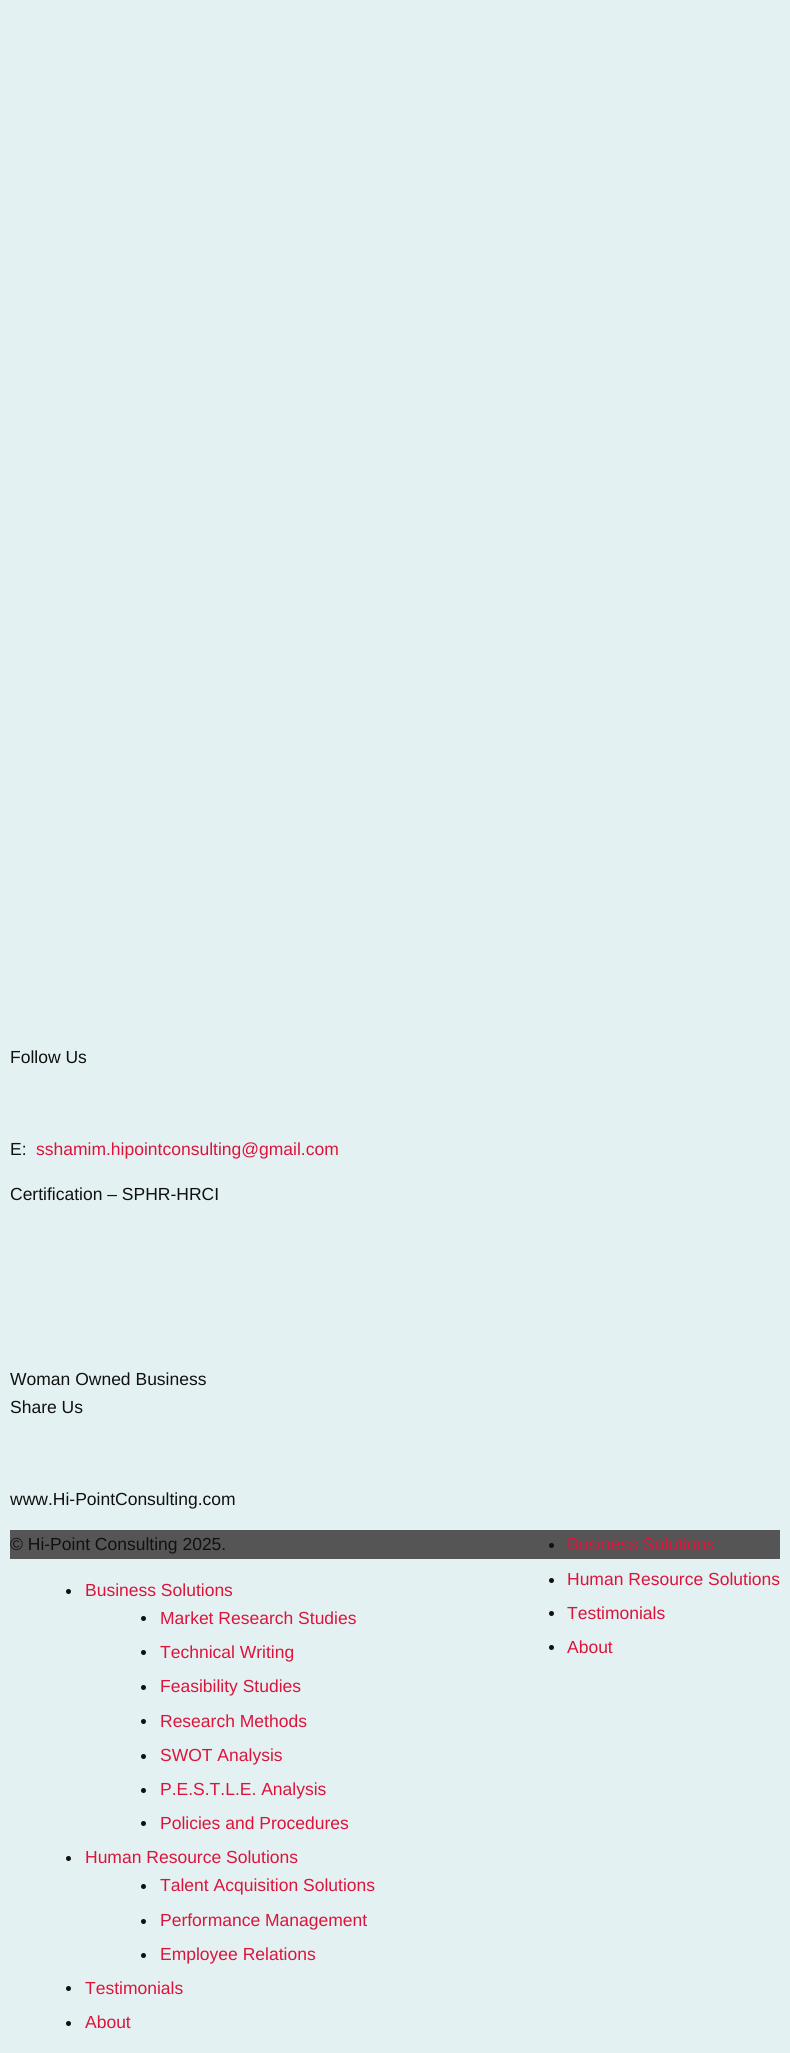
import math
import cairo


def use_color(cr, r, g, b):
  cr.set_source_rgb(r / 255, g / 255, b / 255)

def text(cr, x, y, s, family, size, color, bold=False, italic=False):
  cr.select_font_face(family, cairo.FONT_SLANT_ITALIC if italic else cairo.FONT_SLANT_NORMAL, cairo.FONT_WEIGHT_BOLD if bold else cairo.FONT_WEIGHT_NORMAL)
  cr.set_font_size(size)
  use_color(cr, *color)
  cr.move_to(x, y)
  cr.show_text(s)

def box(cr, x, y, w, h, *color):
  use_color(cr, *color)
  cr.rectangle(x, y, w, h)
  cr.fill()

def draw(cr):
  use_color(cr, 227, 241, 242)
  cr.paint()
  box(cr, 10, 1530, 770, 29, 85, 85, 85)
  use_color(cr, 16, 16, 16)
  cr.arc(551.5, 1545.5, 2.5, 0, 2 * math.pi)
  cr.fill()
  cr.arc(551.5, 1580.5, 2.5, 0, 2 * math.pi)
  cr.fill()
  cr.arc(551.5, 1613.5, 2.5, 0, 2 * math.pi)
  cr.fill()
  cr.arc(551.5, 1647.5, 2.5, 0, 2 * math.pi)
  cr.fill()
  cr.arc(68.5, 1591.5, 2.5, 0, 2 * math.pi)
  cr.fill()
  cr.arc(143.5, 1618.5, 2.5, 0, 2 * math.pi)
  cr.fill()
  cr.arc(143.5, 1652.5, 2.5, 0, 2 * math.pi)
  cr.fill()
  cr.arc(143.5, 1687.5, 2.5, 0, 2 * math.pi)
  cr.fill()
  cr.arc(143.5, 1721.5, 2.5, 0, 2 * math.pi)
  cr.fill()
  cr.arc(143.5, 1756.5, 2.5, 0, 2 * math.pi)
  cr.fill()
  cr.arc(143.5, 1790.5, 2.5, 0, 2 * math.pi)
  cr.fill()
  cr.arc(143.5, 1823.5, 2.5, 0, 2 * math.pi)
  cr.fill()
  cr.arc(68.5, 1858.5, 2.5, 0, 2 * math.pi)
  cr.fill()
  cr.arc(143.5, 1886.5, 2.5, 0, 2 * math.pi)
  cr.fill()
  cr.arc(143.5, 1921.5, 2.5, 0, 2 * math.pi)
  cr.fill()
  cr.arc(143.5, 1955.5, 2.5, 0, 2 * math.pi)
  cr.fill()
  cr.arc(68.5, 1988.5, 2.5, 0, 2 * math.pi)
  cr.fill()
  cr.arc(68.5, 2023.5, 2.5, 0, 2 * math.pi)
  cr.fill()
  text(cr, 10, 1063, "Follow Us", "Liberation Sans", 17.5, (16, 16, 16))
  text(cr, 10, 1155, "E:", "Liberation Sans", 17.5, (16, 16, 16))
  text(cr, 36, 1155, "sshamim.hipointconsulting@gmail.com", "Liberation Sans", 17.5, (220, 20, 60))
  text(cr, 10, 1200, "Certification – SPHR-HRCI", "Liberation Sans", 17.5, (16, 16, 16))
  text(cr, 10, 1385, "Woman Owned Business", "Liberation Sans", 17.5, (16, 16, 16))
  text(cr, 10, 1413, "Share Us", "Liberation Sans", 17.5, (16, 16, 16))
  text(cr, 10, 1505, "www.Hi-PointConsulting.com", "Liberation Sans", 17.5, (16, 16, 16))
  text(cr, 10, 1550, "© Hi-Point Consulting 2025.", "Liberation Sans", 17.5, (16, 16, 16))
  text(cr, 567, 1550, "Business Solutions", "Liberation Sans", 17.5, (220, 20, 60))
  text(cr, 567, 1585, "Human Resource Solutions", "Liberation Sans", 17.5, (220, 20, 60))
  text(cr, 567, 1619, "Testimonials", "Liberation Sans", 17.5, (220, 20, 60))
  text(cr, 567, 1653, "About", "Liberation Sans", 17.5, (220, 20, 60))
  text(cr, 85, 1596, "Business Solutions", "Liberation Sans", 17.5, (220, 20, 60))
  text(cr, 160, 1624, "Market Research Studies", "Liberation Sans", 17.5, (220, 20, 60))
  text(cr, 160, 1658, "Technical Writing", "Liberation Sans", 17.5, (220, 20, 60))
  text(cr, 160, 1692, "Feasibility Studies", "Liberation Sans", 17.5, (220, 20, 60))
  text(cr, 160, 1727, "Research Methods", "Liberation Sans", 17.5, (220, 20, 60))
  text(cr, 160, 1761, "SWOT Analysis", "Liberation Sans", 17.5, (220, 20, 60))
  text(cr, 160, 1795, "P.E.S.T.L.E. Analysis", "Liberation Sans", 17.5, (220, 20, 60))
  text(cr, 160, 1829, "Policies and Procedures", "Liberation Sans", 17.5, (220, 20, 60))
  text(cr, 85, 1863, "Human Resource Solutions", "Liberation Sans", 17.5, (220, 20, 60))
  text(cr, 160, 1891, "Talent Acquisition Solutions", "Liberation Sans", 17.5, (220, 20, 60))
  text(cr, 160, 1926, "Performance Management", "Liberation Sans", 17.5, (220, 20, 60))
  text(cr, 160, 1960, "Employee Relations", "Liberation Sans", 17.5, (220, 20, 60))
  text(cr, 85, 1994, "Testimonials", "Liberation Sans", 17.5, (220, 20, 60))
  text(cr, 85, 2028, "About", "Liberation Sans", 17.5, (220, 20, 60))


surface = cairo.ImageSurface(cairo.FORMAT_RGB24, 790, 2053)
cr = cairo.Context(surface)
options = cairo.FontOptions()
options.set_hint_metrics(cairo.HINT_METRICS_OFF)
options.set_hint_style(cairo.HINT_STYLE_NONE)
cr.set_font_options(options)
cr.set_miter_limit(4)
draw(cr)
surface.write_to_png("out.png")
